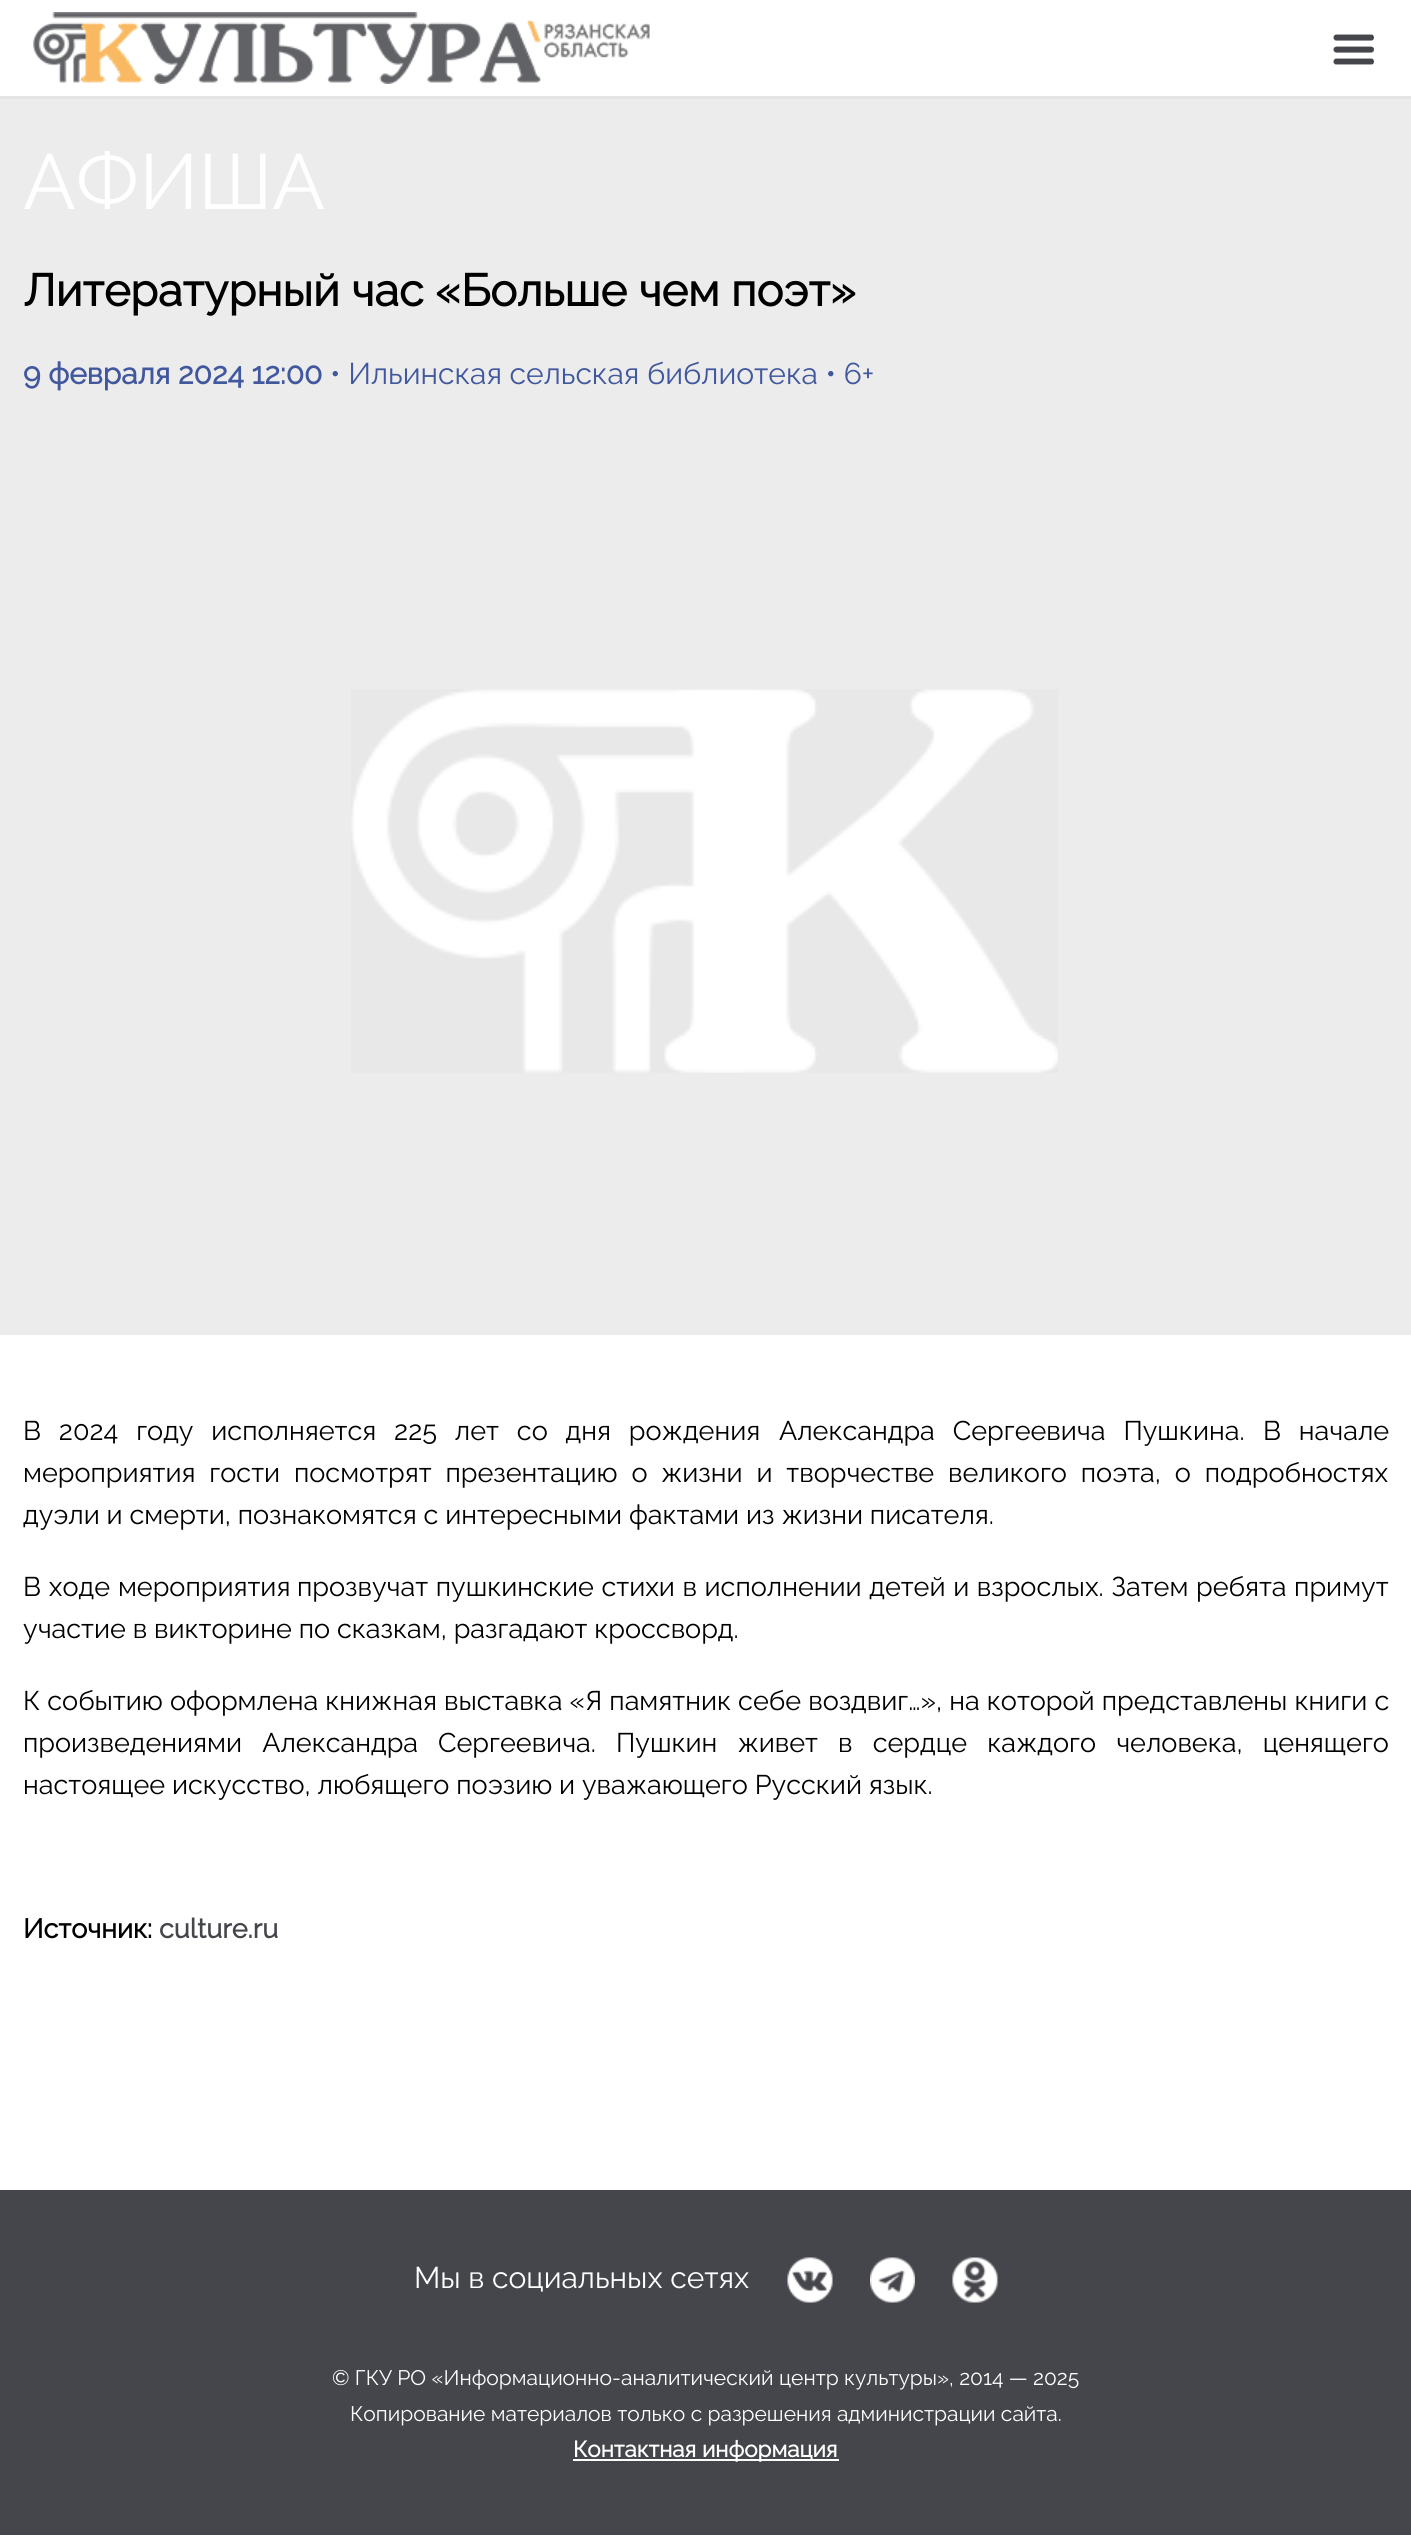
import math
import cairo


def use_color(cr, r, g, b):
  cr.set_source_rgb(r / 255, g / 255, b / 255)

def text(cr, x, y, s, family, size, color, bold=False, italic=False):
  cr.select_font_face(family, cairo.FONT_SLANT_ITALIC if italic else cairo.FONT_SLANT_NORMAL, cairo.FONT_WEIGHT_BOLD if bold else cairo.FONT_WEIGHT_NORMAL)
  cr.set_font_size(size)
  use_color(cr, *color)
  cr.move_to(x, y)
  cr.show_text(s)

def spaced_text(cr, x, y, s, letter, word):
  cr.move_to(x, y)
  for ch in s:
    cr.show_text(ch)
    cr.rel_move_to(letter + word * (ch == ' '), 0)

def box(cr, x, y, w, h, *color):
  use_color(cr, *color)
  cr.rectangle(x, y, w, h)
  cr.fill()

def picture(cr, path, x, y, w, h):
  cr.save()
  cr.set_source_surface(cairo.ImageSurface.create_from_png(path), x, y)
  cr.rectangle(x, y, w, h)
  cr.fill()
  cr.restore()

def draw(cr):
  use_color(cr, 255, 255, 255)
  cr.paint()
  box(cr, 0, 96, 1411, 3, 228, 228, 228)
  picture(cr, "img_01.png", 33, 12, 617, 72)
  picture(cr, "img_02.png", 1333, 34, 41, 31)
  box(cr, 0, 99, 1411, 1236, 236, 236, 236)
  picture(cr, "img_03.png", 351, 689, 707, 384)
  box(cr, 0, 2190, 1411, 345, 69, 70, 75)
  picture(cr, "img_04.png", 787, 2257, 46, 46)
  picture(cr, "img_05.png", 870, 2257, 45, 46)
  picture(cr, "img_06.png", 952, 2257, 46, 46)
  box(cr, 573, 2459, 266, 2, 255, 255, 255)
  text(cr, 23, 209, "АФИША", "Raleway Thin", 78, (255, 255, 255))
  text(cr, 23, 306, "Литературный час «Больше чем поэт»", "Raleway", 45, (0, 0, 0), bold=True)
  text(cr, 23, 384, "9 февраля 2024 12:00", "Raleway", 30, (65, 87, 158), bold=True)
  text(cr, 330, 384, "• Ильинская сельская библиотека • 6+", "Raleway Thin", 30, (65, 87, 158))
  cr.set_font_size(27)
  use_color(cr, 0, 0, 0)
  spaced_text(cr, 23, 1440, "В 2024 году исполняется 225 лет со дня рождения", 0, 11)
  spaced_text(cr, 779, 1440, "Александра Сергеевича Пушкина.", 0, 11)
  spaced_text(cr, 1263, 1440, "В начале", 0, 11)
  spaced_text(cr, 23, 1482, "мероприятия гости посмотрят презентацию о", 0, 7)
  spaced_text(cr, 661, 1482, "жизни и творчестве великого поэта, о подробностях", 0, 7)
  text(cr, 23, 1524, "дуэли и смерти, познакомятся с интересными фактами из жизни писателя.", "Raleway Thin", 27, (0, 0, 0))
  spaced_text(cr, 23, 1596, "В ходе мероприятия", 0, 1)
  spaced_text(cr, 297, 1596, "прозвучат пушкинские стихи в исполнении детей и взрослых. Затем ребята примут", 0, 0.75)
  text(cr, 23, 1638, "участие в викторине по сказкам, разгадают кроссворд.", "Raleway Thin", 27, (0, 0, 0))
  spaced_text(cr, 23, 1710, "К событию оформлена книжная выставка «Я памятник себе воздвиг…», на которой представлены книги с", 0, 0.25)
  spaced_text(cr, 23, 1752, "произведениями Александра", 0, 13.25)
  text(cr, 438, 1752, "Сергеевича.", "Raleway Thin", 27, (0, 0, 0))
  spaced_text(cr, 616, 1752, "Пушкин живет в сердце каждого человека, ценящего", 0, 13.25)
  text(cr, 23, 1794, "настоящее искусство, любящего поэзию и уважающего Русский язык.", "Raleway Thin", 27, (0, 0, 0))
  text(cr, 23, 1938, "Источник:", "Raleway", 27, (0, 0, 0), bold=True)
  text(cr, 159, 1938, "culture.ru", "Raleway", 27, (69, 70, 75), bold=True)
  text(cr, 414, 2288, "Мы в социальных сетях", "Raleway Thin", 30, (255, 255, 255))
  text(cr, 332, 2385, "© ГКУ РО «Информационно-аналитический центр культуры», 2014 — 2025", "Raleway Thin", 21, (255, 255, 255))
  text(cr, 350, 2421, "Копирование материалов только с разрешения администрации сайта.", "Raleway Thin", 21, (255, 255, 255))
  text(cr, 573, 2457, "Контактная информация", "Raleway", 22.5, (255, 255, 255), bold=True)


surface = cairo.ImageSurface(cairo.FORMAT_RGB24, 1411, 2535)
cr = cairo.Context(surface)
options = cairo.FontOptions()
options.set_hint_metrics(cairo.HINT_METRICS_OFF)
options.set_hint_style(cairo.HINT_STYLE_NONE)
cr.set_font_options(options)
cr.set_miter_limit(4)
draw(cr)
surface.write_to_png("out.png")
